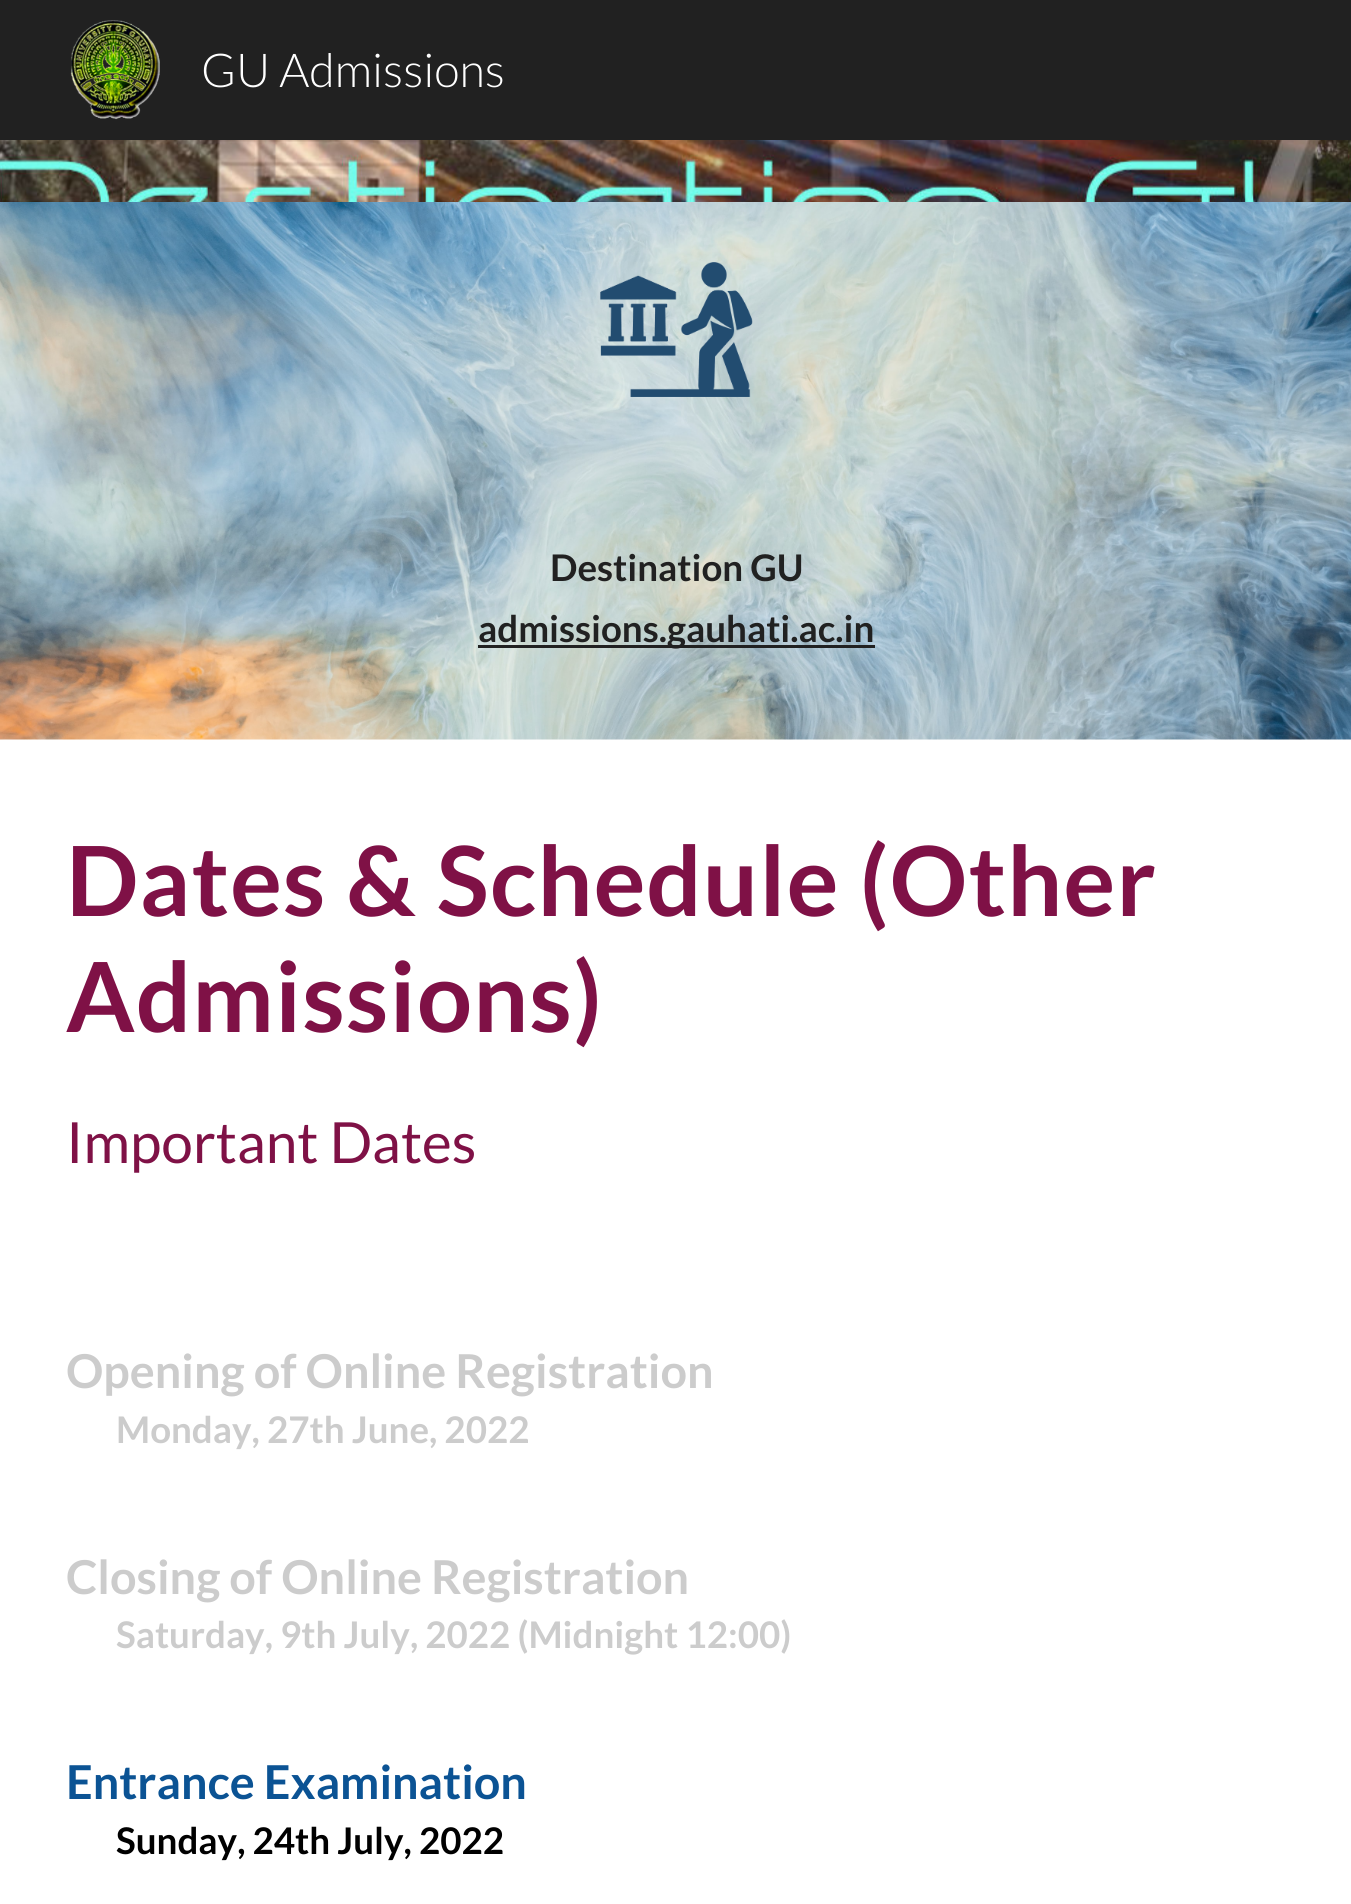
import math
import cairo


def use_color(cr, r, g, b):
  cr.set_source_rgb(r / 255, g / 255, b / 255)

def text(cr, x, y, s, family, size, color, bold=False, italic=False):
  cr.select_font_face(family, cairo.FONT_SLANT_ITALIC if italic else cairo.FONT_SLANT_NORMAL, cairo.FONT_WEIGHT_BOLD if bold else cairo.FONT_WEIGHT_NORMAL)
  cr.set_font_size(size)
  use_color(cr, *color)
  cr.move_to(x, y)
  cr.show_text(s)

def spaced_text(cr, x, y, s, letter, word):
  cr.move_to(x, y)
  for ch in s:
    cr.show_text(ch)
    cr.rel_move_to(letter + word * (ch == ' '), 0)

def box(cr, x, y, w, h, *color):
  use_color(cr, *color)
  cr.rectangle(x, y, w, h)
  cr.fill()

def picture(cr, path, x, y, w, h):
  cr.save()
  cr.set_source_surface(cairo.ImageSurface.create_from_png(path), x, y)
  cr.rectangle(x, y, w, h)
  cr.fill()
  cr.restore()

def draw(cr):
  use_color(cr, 255, 255, 255)
  cr.paint()
  box(cr, 0, 0, 1351, 140, 33, 33, 33)
  picture(cr, "img_01.png", 70, 20, 90, 100)
  picture(cr, "img_02.png", 0, 140, 1351, 62)
  picture(cr, "img_03.png", 0, 202, 1351, 538)
  picture(cr, "img_04.png", 600, 262, 153, 135)
  box(cr, 478, 645, 397, 3, 33, 33, 33)
  text(cr, 201, 87, "GU Admissions", "Lato Light", 46.7, (255, 255, 255))
  text(cr, 550, 581, "Destination GU", "Lato", 36.7, (33, 33, 33), bold=True)
  text(cr, 478, 642, "admissions.gauhati.ac.in", "Lato", 36.7, (33, 33, 33), bold=True)
  cr.set_font_size(96.75)
  use_color(cr, 127, 17, 70)
  spaced_text(cr, 66, 916, "Dates & Schedule (Other", 1.25, 0)
  spaced_text(cr, 66, 1032, "Admissions)", 1.25, 0)
  text(cr, 66, 1163, "Important Dates", "Lato", 56.75, (127, 17, 70))
  text(cr, 66, 1388, "Opening of Online Registration", "Lato", 46.7, (204, 204, 204), bold=True)
  text(cr, 116, 1443, "Monday, 27th June, 2022", "Lato", 36.7, (204, 204, 204), bold=True)
  text(cr, 66, 1594, "Closing of Online Registration", "Lato", 46.7, (204, 204, 204), bold=True)
  text(cr, 116, 1648, "Saturday, 9th July, 2022 (Midnight 12:00)", "Lato", 36.7, (204, 204, 204), bold=True)
  text(cr, 66, 1799, "Entrance Examination", "Lato", 46.7, (11, 83, 148), bold=True)
  text(cr, 116, 1854, "Sunday, 24th July, 2022", "Lato", 36.7, (0, 0, 0), bold=True)


surface = cairo.ImageSurface(cairo.FORMAT_RGB24, 1351, 1904)
cr = cairo.Context(surface)
options = cairo.FontOptions()
options.set_hint_metrics(cairo.HINT_METRICS_OFF)
options.set_hint_style(cairo.HINT_STYLE_NONE)
cr.set_font_options(options)
cr.set_miter_limit(4)
draw(cr)
surface.write_to_png("out.png")
